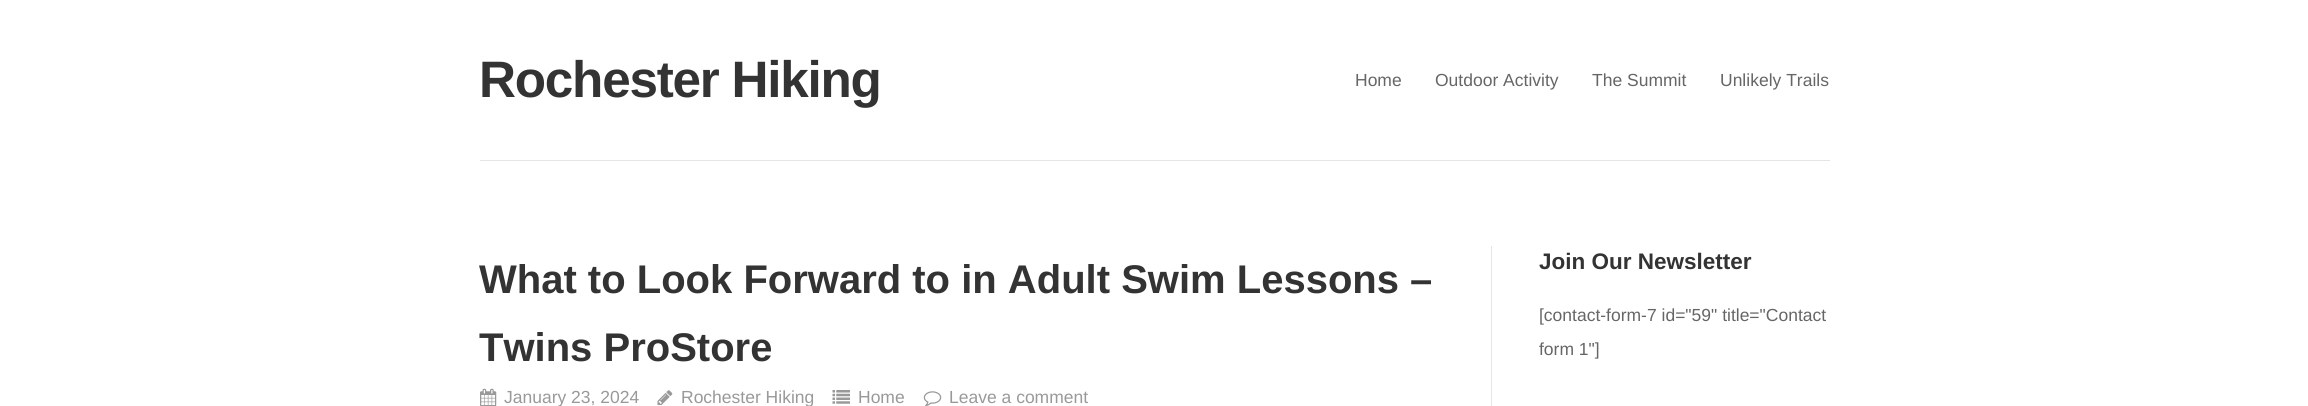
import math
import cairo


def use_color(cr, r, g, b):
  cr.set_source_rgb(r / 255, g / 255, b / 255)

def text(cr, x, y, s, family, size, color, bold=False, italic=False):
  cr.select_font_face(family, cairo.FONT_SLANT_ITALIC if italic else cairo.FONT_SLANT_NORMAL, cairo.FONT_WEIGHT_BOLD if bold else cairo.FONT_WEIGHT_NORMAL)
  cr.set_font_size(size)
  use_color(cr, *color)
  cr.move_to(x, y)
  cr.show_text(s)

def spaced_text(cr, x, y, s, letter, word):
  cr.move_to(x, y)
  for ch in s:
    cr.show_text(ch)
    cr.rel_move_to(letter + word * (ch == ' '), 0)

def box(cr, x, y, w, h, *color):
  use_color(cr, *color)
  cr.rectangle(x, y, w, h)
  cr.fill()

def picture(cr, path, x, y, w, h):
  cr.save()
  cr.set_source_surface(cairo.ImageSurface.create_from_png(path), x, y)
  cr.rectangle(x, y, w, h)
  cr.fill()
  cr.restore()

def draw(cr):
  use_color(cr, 255, 255, 255)
  cr.paint()
  box(cr, 480, 160, 1350, 1, 229, 229, 229)
  box(cr, 1491, 246, 1, 160, 229, 229, 229)
  picture(cr, "img_01.png", 480, 388, 17, 18)
  picture(cr, "img_02.png", 657, 390, 16, 15)
  picture(cr, "img_03.png", 832, 390, 18, 14)
  picture(cr, "img_04.png", 923, 391, 19, 15)
  cr.select_font_face("Liberation Sans", cairo.FONT_SLANT_NORMAL, cairo.FONT_WEIGHT_BOLD)
  cr.set_font_size(51.25)
  use_color(cr, 51, 51, 51)
  spaced_text(cr, 479, 97, "Rochester Hiking", -1.25, 0)
  text(cr, 1355, 86, "Home", "Liberation Sans", 17.5, (102, 102, 102))
  text(cr, 1435, 86, "Outdoor Activity", "Liberation Sans", 17.5, (102, 102, 102))
  text(cr, 1592, 86, "The Summit", "Liberation Sans", 17.5, (102, 102, 102))
  text(cr, 1720, 86, "Unlikely Trails", "Liberation Sans", 17.5, (102, 102, 102))
  text(cr, 479, 293, "What to Look Forward to in Adult Swim Lessons –", "Liberation Sans", 40, (51, 51, 51), bold=True)
  text(cr, 479, 361, "Twins ProStore", "Liberation Sans", 40, (51, 51, 51), bold=True)
  text(cr, 504, 403, "January 23, 2024", "Liberation Sans", 17.5, (153, 153, 153))
  text(cr, 681, 403, "Rochester Hiking", "Liberation Sans", 17.5, (153, 153, 153))
  text(cr, 858, 403, "Home", "Liberation Sans", 17.5, (153, 153, 153))
  text(cr, 949, 403, "Leave a comment", "Liberation Sans", 17.5, (153, 153, 153))
  text(cr, 1539, 269, "Join Our Newsletter", "Liberation Sans", 22.5, (51, 51, 51), bold=True)
  text(cr, 1539, 321, "[contact-form-7 id=\"59\" title=\"Contact", "Liberation Sans", 17.5, (102, 102, 102))
  text(cr, 1539, 355, "form 1\"]", "Liberation Sans", 17.5, (102, 102, 102))


surface = cairo.ImageSurface(cairo.FORMAT_RGB24, 2308, 406)
cr = cairo.Context(surface)
options = cairo.FontOptions()
options.set_hint_metrics(cairo.HINT_METRICS_OFF)
options.set_hint_style(cairo.HINT_STYLE_NONE)
cr.set_font_options(options)
cr.set_miter_limit(4)
draw(cr)
surface.write_to_png("out.png")
